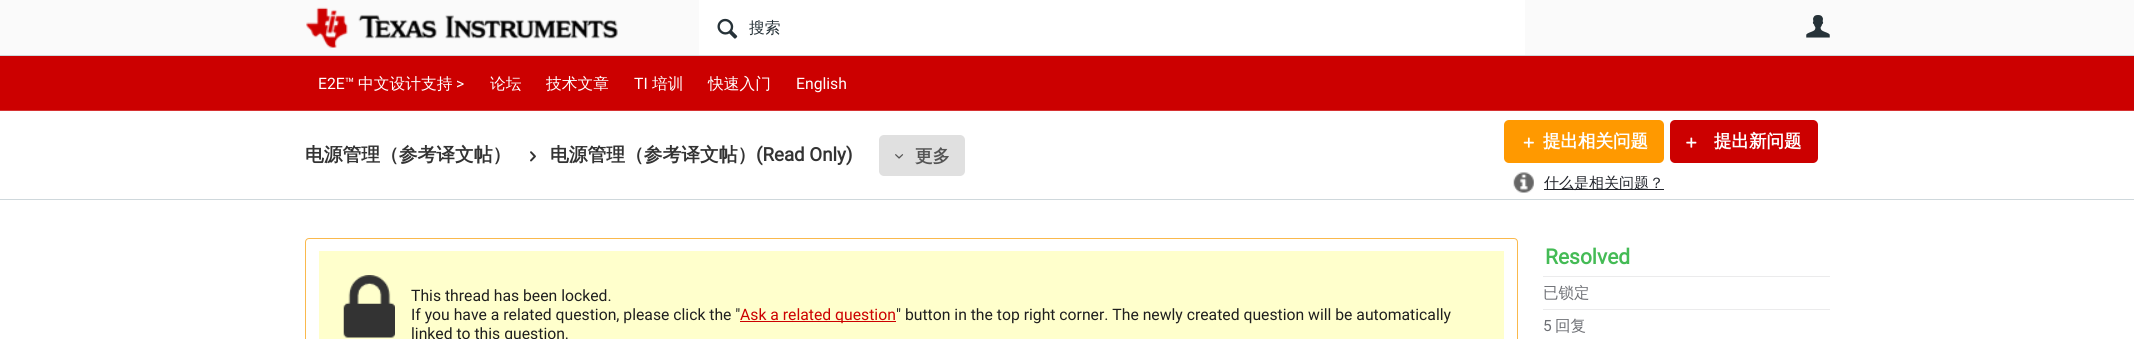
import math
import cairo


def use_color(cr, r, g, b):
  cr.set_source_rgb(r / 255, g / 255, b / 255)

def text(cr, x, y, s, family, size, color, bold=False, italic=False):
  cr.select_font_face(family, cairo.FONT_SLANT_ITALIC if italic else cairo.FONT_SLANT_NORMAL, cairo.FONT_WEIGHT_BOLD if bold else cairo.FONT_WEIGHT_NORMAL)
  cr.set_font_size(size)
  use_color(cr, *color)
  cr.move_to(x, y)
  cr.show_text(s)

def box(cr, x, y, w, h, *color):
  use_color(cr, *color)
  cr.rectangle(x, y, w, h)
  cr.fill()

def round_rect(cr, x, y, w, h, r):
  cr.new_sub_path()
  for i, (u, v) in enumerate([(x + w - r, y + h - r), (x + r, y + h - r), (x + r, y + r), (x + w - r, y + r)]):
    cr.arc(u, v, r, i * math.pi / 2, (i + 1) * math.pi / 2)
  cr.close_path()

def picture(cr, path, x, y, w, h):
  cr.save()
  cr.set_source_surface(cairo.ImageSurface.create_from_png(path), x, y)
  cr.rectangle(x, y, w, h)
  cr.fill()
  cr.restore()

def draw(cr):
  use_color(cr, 255, 255, 255)
  cr.paint()
  box(cr, 0, 0, 2134, 55, 250, 250, 250)
  box(cr, 0, 55, 2134, 1, 207, 216, 220)
  picture(cr, "img_01.png", 306, 7, 312, 41)
  box(cr, 699, 0, 826, 55, 255, 255, 255)
  picture(cr, "img_02.png", 717, 18, 21, 21)
  picture(cr, "img_03.png", 1806, 15, 24, 23)
  box(cr, 0, 199, 2134, 1, 207, 216, 220)
  box(cr, 0, 56, 2134, 54, 204, 0, 0)
  box(cr, 0, 110, 2134, 1, 214, 51, 51)
  picture(cr, "img_04.png", 530, 151, 6, 11)
  use_color(cr, 224, 224, 224)
  round_rect(cr, 879, 135, 86, 41, 5)
  cr.fill()
  picture(cr, "img_05.png", 895, 154, 9, 5)
  use_color(cr, 255, 153, 0)
  round_rect(cr, 1504, 120, 160, 43, 5)
  cr.fill()
  picture(cr, "img_06.png", 1523, 137, 11, 11)
  picture(cr, "img_07.png", 1513, 172, 21, 21)
  box(cr, 1544, 189, 120, 1, 34, 37, 44)
  use_color(cr, 204, 0, 0)
  round_rect(cr, 1670, 120, 148, 43, 5)
  cr.fill()
  picture(cr, "img_08.png", 1686, 137, 11, 11)
  round_rect(cr, 305.5, 238.5, 1212, 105, 3.5)
  use_color(cr, 250, 185, 77)
  cr.set_line_width(1)
  cr.stroke()
  box(cr, 319, 251, 1185, 88, 255, 255, 204)
  picture(cr, "img_09.png", 343, 275, 52, 63)
  box(cr, 740, 321, 156, 1, 204, 0, 0)
  box(cr, 1543, 276, 287, 1, 235, 235, 236)
  box(cr, 1543, 309, 287, 1, 235, 235, 236)
  text(cr, 749, 33, "搜索", "WenQuanYi Zen Hei Medium", 15.75, (38, 50, 56))
  text(cr, 318, 89, "E2E™", "Roboto", 15.75, (255, 255, 255))
  text(cr, 358, 89, "中文设计支持", "WenQuanYi Zen Hei Medium", 15.75, (255, 255, 255))
  text(cr, 456, 89, ">", "Roboto", 15.75, (255, 255, 255))
  text(cr, 490, 89, "论坛", "WenQuanYi Zen Hei Medium", 15.75, (255, 255, 255))
  text(cr, 546, 89, "技术文章", "WenQuanYi Zen Hei Medium", 15.75, (255, 255, 255))
  text(cr, 634, 89, "TI", "Roboto", 15.75, (255, 255, 255))
  text(cr, 652, 89, "培训", "WenQuanYi Zen Hei Medium", 15.75, (255, 255, 255))
  text(cr, 708, 89, "快速入门", "WenQuanYi Zen Hei Medium", 15.75, (255, 255, 255))
  text(cr, 796, 89, "English", "Roboto", 15.75, (255, 255, 255))
  text(cr, 305, 161, "电源管理（参考译文帖）", "WenQuanYi Zen Hei", 18.75, (51, 51, 51), bold=True)
  text(cr, 550, 161, "电源管理（参考译文帖）", "WenQuanYi Zen Hei", 18.75, (51, 51, 51), bold=True)
  text(cr, 756, 161, "(Read Only)", "Roboto", 18.75, (51, 51, 51), bold=True)
  text(cr, 915, 162, "更多", "WenQuanYi Zen Hei", 17.5, (85, 85, 85), bold=True)
  text(cr, 1543, 147, "提出相关问题", "WenQuanYi Zen Hei", 17.5, (255, 255, 255), bold=True)
  text(cr, 1544, 188, "什么是相关问题？", "WenQuanYi Zen Hei Medium", 15, (34, 37, 44))
  text(cr, 1714, 147, "提出新问题", "WenQuanYi Zen Hei", 17.5, (255, 255, 255), bold=True)
  text(cr, 411, 301, "This thread has been locked.", "Roboto", 15.75, (30, 30, 30))
  text(cr, 411, 320, "If you have a related question, please click the \"", "Roboto", 15.75, (30, 30, 30))
  text(cr, 740, 320, "Ask a related question", "Roboto", 15.75, (204, 0, 0))
  text(cr, 896, 320, "\" button in the top right corner. The newly created question will be automatically", "Roboto", 15.75, (30, 30, 30))
  text(cr, 411, 339, "linked to this question.", "Roboto", 15.75, (30, 30, 30))
  text(cr, 1545, 264, "Resolved", "Roboto", 21, (68, 187, 85), bold=True)
  text(cr, 1543, 298, "已锁定", "WenQuanYi Zen Hei Medium", 15.5, (109, 111, 116))
  text(cr, 1543, 331, "5", "Roboto", 15.5, (109, 111, 116))
  text(cr, 1555, 331, "回复", "WenQuanYi Zen Hei Medium", 15.5, (109, 111, 116))


surface = cairo.ImageSurface(cairo.FORMAT_RGB24, 2134, 339)
cr = cairo.Context(surface)
options = cairo.FontOptions()
options.set_hint_metrics(cairo.HINT_METRICS_OFF)
options.set_hint_style(cairo.HINT_STYLE_NONE)
cr.set_font_options(options)
cr.set_miter_limit(4)
draw(cr)
surface.write_to_png("out.png")
